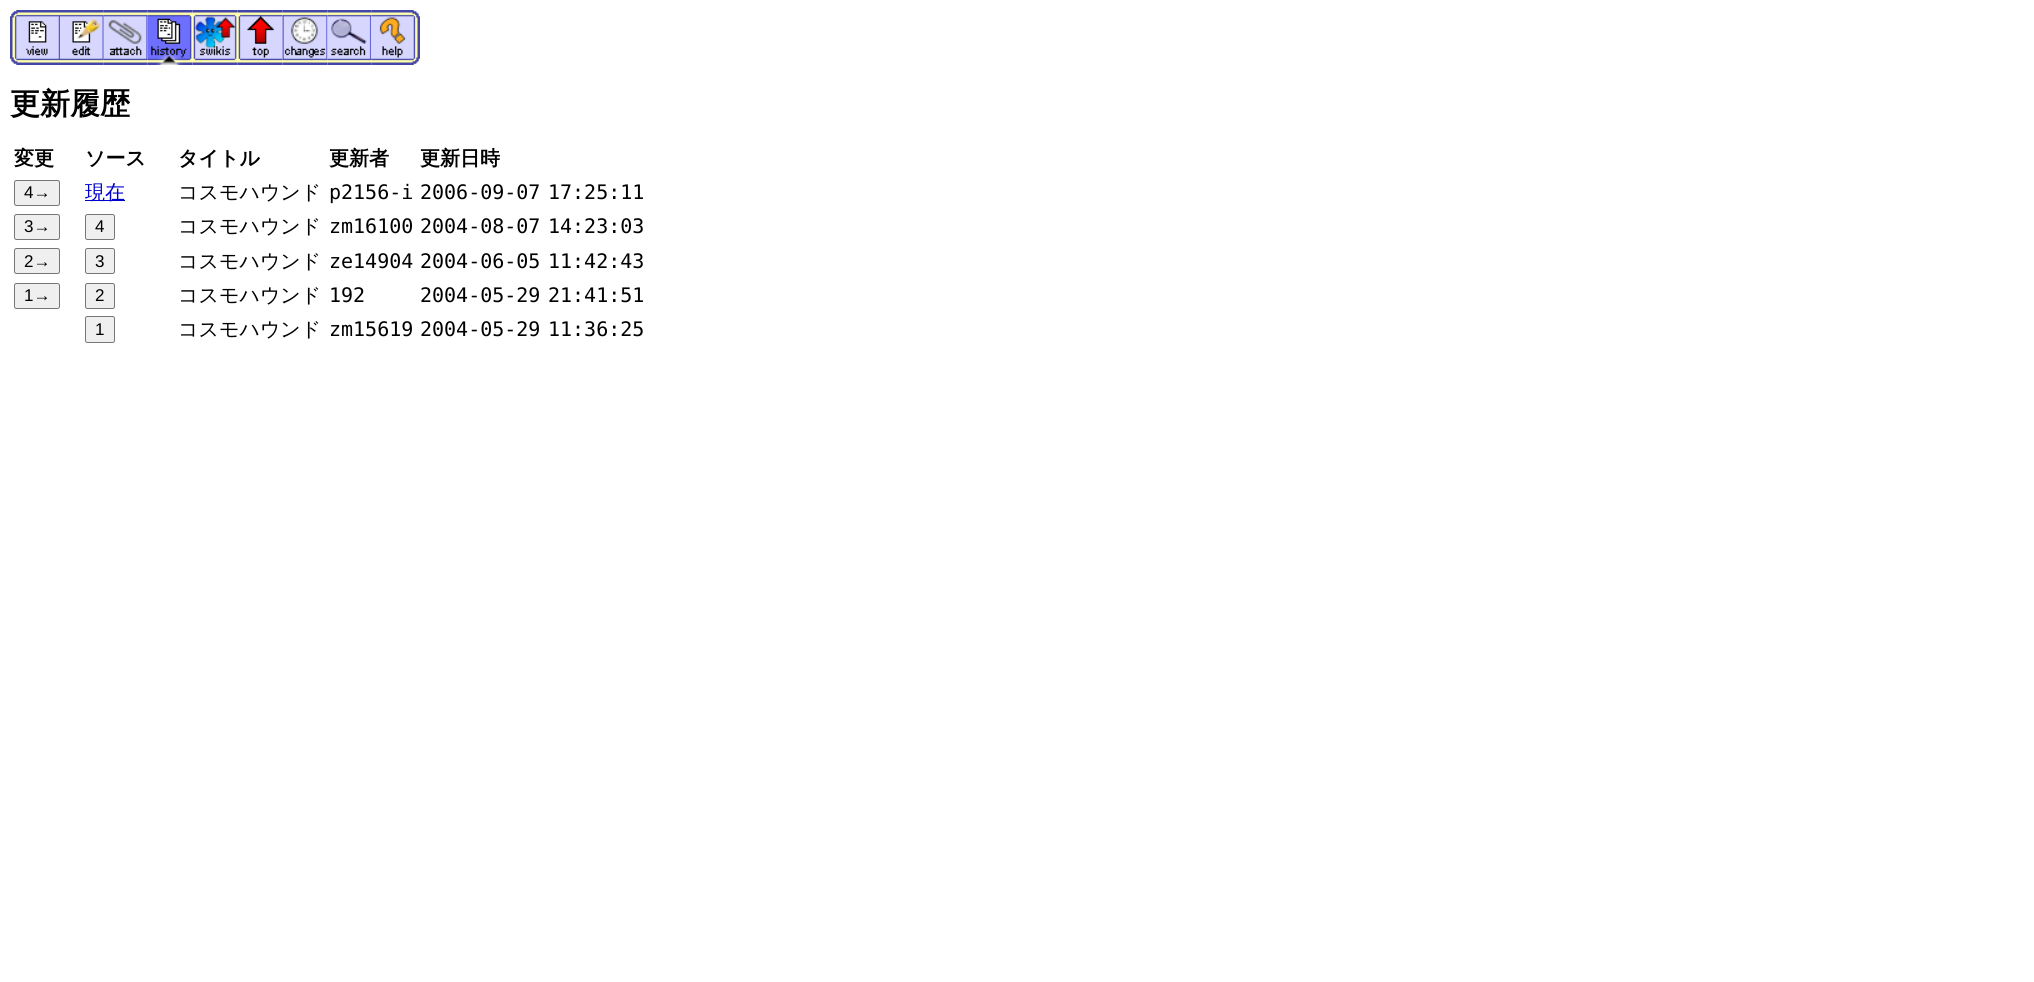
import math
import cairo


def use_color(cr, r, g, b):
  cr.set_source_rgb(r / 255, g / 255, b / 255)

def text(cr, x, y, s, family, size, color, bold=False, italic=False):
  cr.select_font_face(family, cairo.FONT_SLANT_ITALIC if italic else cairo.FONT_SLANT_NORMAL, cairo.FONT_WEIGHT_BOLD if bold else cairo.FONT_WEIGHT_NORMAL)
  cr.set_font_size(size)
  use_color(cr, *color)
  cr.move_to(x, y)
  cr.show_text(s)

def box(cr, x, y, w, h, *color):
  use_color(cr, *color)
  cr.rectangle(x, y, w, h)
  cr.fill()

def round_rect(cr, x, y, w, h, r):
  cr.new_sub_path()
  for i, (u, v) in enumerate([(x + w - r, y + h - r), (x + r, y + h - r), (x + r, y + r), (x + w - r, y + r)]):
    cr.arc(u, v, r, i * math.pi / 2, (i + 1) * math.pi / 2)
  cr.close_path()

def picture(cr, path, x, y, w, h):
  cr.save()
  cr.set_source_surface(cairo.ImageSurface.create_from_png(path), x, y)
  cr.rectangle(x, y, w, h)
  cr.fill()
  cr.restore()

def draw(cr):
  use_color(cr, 255, 255, 255)
  cr.paint()
  picture(cr, "img_01.png", 10, 10, 50, 55)
  picture(cr, "img_02.png", 60, 10, 44, 55)
  picture(cr, "img_03.png", 103, 10, 45, 55)
  picture(cr, "img_04.png", 147, 10, 46, 55)
  picture(cr, "img_05.png", 192, 10, 46, 55)
  picture(cr, "img_06.png", 237, 10, 46, 55)
  picture(cr, "img_07.png", 282, 10, 46, 55)
  picture(cr, "img_08.png", 327, 10, 45, 55)
  picture(cr, "img_09.png", 371, 10, 49, 55)
  use_color(cr, 239, 239, 239)
  round_rect(cr, 14.5, 180.5, 45, 25, 2)
  cr.fill_preserve()
  use_color(cr, 118, 118, 118)
  cr.set_line_width(1)
  cr.stroke()
  box(cr, 85, 200, 40, 1, 0, 0, 204)
  use_color(cr, 239, 239, 239)
  round_rect(cr, 14.5, 214.5, 45, 25, 2)
  cr.fill_preserve()
  use_color(cr, 118, 118, 118)
  cr.stroke()
  use_color(cr, 239, 239, 239)
  round_rect(cr, 85.5, 214.5, 29, 25, 2)
  cr.fill_preserve()
  use_color(cr, 118, 118, 118)
  cr.stroke()
  use_color(cr, 239, 239, 239)
  round_rect(cr, 14.5, 248.5, 45, 25, 2)
  cr.fill_preserve()
  use_color(cr, 118, 118, 118)
  cr.stroke()
  use_color(cr, 239, 239, 239)
  round_rect(cr, 85.5, 248.5, 29, 25, 2)
  cr.fill_preserve()
  use_color(cr, 118, 118, 118)
  cr.stroke()
  use_color(cr, 239, 239, 239)
  round_rect(cr, 14.5, 283.5, 45, 25, 2)
  cr.fill_preserve()
  use_color(cr, 118, 118, 118)
  cr.stroke()
  use_color(cr, 239, 239, 239)
  round_rect(cr, 85.5, 283.5, 29, 25, 2)
  cr.fill_preserve()
  use_color(cr, 118, 118, 118)
  cr.stroke()
  use_color(cr, 239, 239, 239)
  round_rect(cr, 85.5, 316.5, 29, 26, 2)
  cr.fill_preserve()
  use_color(cr, 118, 118, 118)
  cr.stroke()
  text(cr, 10, 114, "更新履歴", "WenQuanYi Zen Hei", 30, (0, 0, 0), bold=True)
  text(cr, 14, 165, "変更", "WenQuanYi Zen Hei", 20, (0, 0, 0), bold=True)
  text(cr, 85, 165, "ソース", "WenQuanYi Zen Hei", 20, (0, 0, 0), bold=True)
  text(cr, 178, 165, "タイトル", "WenQuanYi Zen Hei", 20, (0, 0, 0), bold=True)
  text(cr, 329, 165, "更新者", "WenQuanYi Zen Hei", 20, (0, 0, 0), bold=True)
  text(cr, 420, 165, "更新日時", "WenQuanYi Zen Hei", 20, (0, 0, 0), bold=True)
  text(cr, 24, 198, "4→", "Liberation Sans", 17, (0, 0, 0))
  text(cr, 85, 199, "現在", "WenQuanYi Zen Hei Medium", 20, (0, 0, 204))
  text(cr, 178, 199, "コスモハウンド", "WenQuanYi Zen Hei Medium", 20, (0, 0, 0))
  text(cr, 329, 199, "p2156-i", "DejaVu Sans Mono", 20, (0, 0, 0))
  text(cr, 420, 199, "2006-09-07", "DejaVu Sans Mono", 20, (0, 0, 0))
  text(cr, 548, 199, "17:25:11", "DejaVu Sans Mono", 20, (0, 0, 0))
  text(cr, 24, 232, "3→", "Liberation Sans", 17, (0, 0, 0))
  text(cr, 95, 232, "4", "Liberation Sans", 17, (0, 0, 0))
  text(cr, 178, 233, "コスモハウンド", "WenQuanYi Zen Hei Medium", 20, (0, 0, 0))
  text(cr, 329, 233, "zm16100", "DejaVu Sans Mono", 20, (0, 0, 0))
  text(cr, 420, 233, "2004-08-07", "DejaVu Sans Mono", 20, (0, 0, 0))
  text(cr, 548, 233, "14:23:03", "DejaVu Sans Mono", 20, (0, 0, 0))
  text(cr, 24, 267, "2→", "Liberation Sans", 17, (0, 0, 0))
  text(cr, 95, 267, "3", "Liberation Sans", 17, (0, 0, 0))
  text(cr, 178, 268, "コスモハウンド", "WenQuanYi Zen Hei Medium", 20, (0, 0, 0))
  text(cr, 329, 268, "ze14904", "DejaVu Sans Mono", 20, (0, 0, 0))
  text(cr, 420, 268, "2004-06-05", "DejaVu Sans Mono", 20, (0, 0, 0))
  text(cr, 548, 268, "11:42:43", "DejaVu Sans Mono", 20, (0, 0, 0))
  text(cr, 24, 301, "1→", "Liberation Sans", 17, (0, 0, 0))
  text(cr, 95, 301, "2", "Liberation Sans", 17, (0, 0, 0))
  text(cr, 178, 302, "コスモハウンド", "WenQuanYi Zen Hei Medium", 20, (0, 0, 0))
  text(cr, 329, 302, "192", "DejaVu Sans Mono", 20, (0, 0, 0))
  text(cr, 420, 302, "2004-05-29", "DejaVu Sans Mono", 20, (0, 0, 0))
  text(cr, 548, 302, "21:41:51", "DejaVu Sans Mono", 20, (0, 0, 0))
  text(cr, 95, 335, "1", "Liberation Sans", 17, (0, 0, 0))
  text(cr, 178, 336, "コスモハウンド", "WenQuanYi Zen Hei Medium", 20, (0, 0, 0))
  text(cr, 329, 336, "zm15619", "DejaVu Sans Mono", 20, (0, 0, 0))
  text(cr, 420, 336, "2004-05-29", "DejaVu Sans Mono", 20, (0, 0, 0))
  text(cr, 548, 336, "11:36:25", "DejaVu Sans Mono", 20, (0, 0, 0))


surface = cairo.ImageSurface(cairo.FORMAT_RGB24, 2034, 982)
cr = cairo.Context(surface)
options = cairo.FontOptions()
options.set_hint_metrics(cairo.HINT_METRICS_OFF)
options.set_hint_style(cairo.HINT_STYLE_NONE)
cr.set_font_options(options)
cr.set_miter_limit(4)
draw(cr)
surface.write_to_png("out.png")
